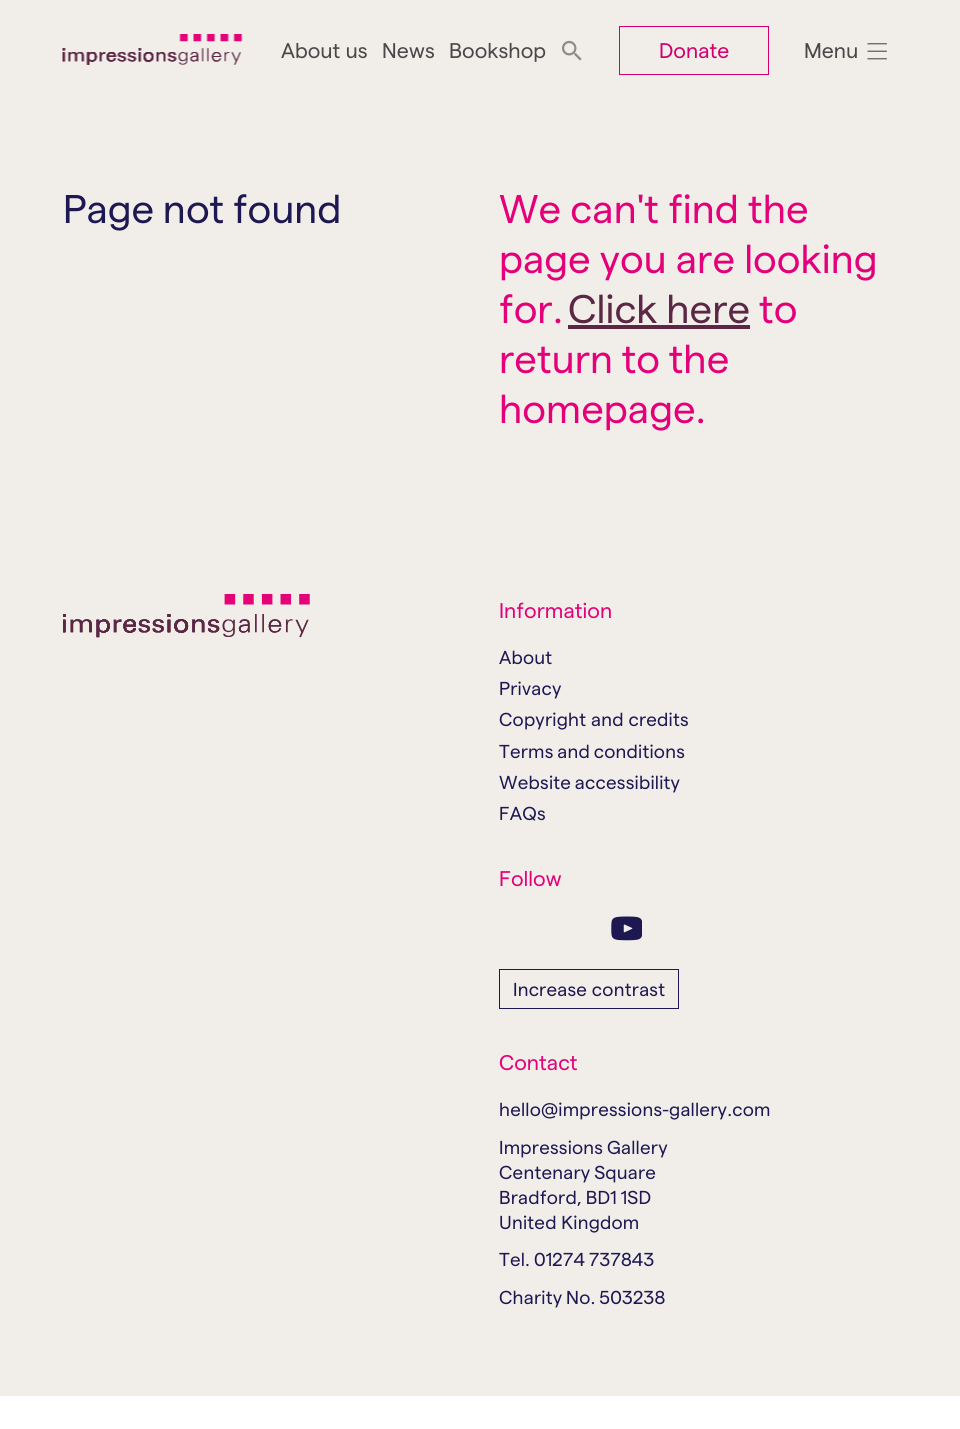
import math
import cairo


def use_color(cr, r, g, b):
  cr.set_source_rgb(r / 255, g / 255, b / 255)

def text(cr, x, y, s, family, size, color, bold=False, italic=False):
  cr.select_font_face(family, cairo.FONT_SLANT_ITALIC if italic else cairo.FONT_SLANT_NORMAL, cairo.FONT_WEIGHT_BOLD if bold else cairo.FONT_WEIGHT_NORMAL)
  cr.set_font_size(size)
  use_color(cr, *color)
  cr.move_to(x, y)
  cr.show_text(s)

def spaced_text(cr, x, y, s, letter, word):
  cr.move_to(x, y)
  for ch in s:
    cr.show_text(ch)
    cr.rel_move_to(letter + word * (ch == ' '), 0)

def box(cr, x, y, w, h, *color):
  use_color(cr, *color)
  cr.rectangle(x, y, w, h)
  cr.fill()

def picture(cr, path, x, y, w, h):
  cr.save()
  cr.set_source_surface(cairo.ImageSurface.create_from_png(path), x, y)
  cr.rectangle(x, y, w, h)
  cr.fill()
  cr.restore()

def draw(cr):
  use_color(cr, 255, 255, 255)
  cr.paint()
  box(cr, 0, 0, 960, 1396, 241, 238, 234)
  picture(cr, "img_01.png", 62, 34, 181, 31)
  picture(cr, "img_02.png", 562, 40, 20, 21)
  cr.rectangle(619.5, 26.5, 149, 48)
  use_color(cr, 209, 0, 110)
  cr.set_line_width(1)
  cr.stroke()
  picture(cr, "img_03.png", 867, 43, 20, 17)
  box(cr, 568, 325, 182, 4, 92, 39, 68)
  picture(cr, "img_04.png", 63, 594, 247, 44)
  picture(cr, "img_05.png", 611, 916, 31, 25)
  cr.rectangle(499.5, 969.5, 179, 39)
  use_color(cr, 30, 24, 82)
  cr.stroke()
  text(cr, 281, 58, "About us", "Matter", 21.25, (73, 72, 72))
  text(cr, 382, 58, "News", "Matter", 21.25, (73, 72, 72))
  text(cr, 449, 58, "Bookshop", "Matter", 21.25, (73, 72, 72))
  text(cr, 659, 58, "Donate", "Matter", 21.25, (209, 0, 110))
  text(cr, 804, 58, "Menu", "Matter", 21.25, (73, 72, 72))
  cr.set_font_size(40)
  use_color(cr, 30, 24, 82)
  spaced_text(cr, 63, 223, "Page not found", 0, -1)
  use_color(cr, 228, 0, 120)
  spaced_text(cr, 499, 223, "We can't find the", 0, -0.5)
  spaced_text(cr, 499, 273, "page you are looking", 0, -0.5)
  text(cr, 499, 323, "for.", "Matter", 40, (228, 0, 120))
  use_color(cr, 92, 39, 68)
  spaced_text(cr, 568, 323, "Click here", 0, -1)
  text(cr, 759, 323, "to", "Matter", 40, (228, 0, 120))
  spaced_text(cr, 499, 373, "return to the", 0, -1)
  text(cr, 499, 423, "homepage.", "Matter", 40, (228, 0, 120))
  text(cr, 499, 618, "Information", "Matter", 21.25, (228, 0, 120))
  cr.set_font_size(18.75)
  use_color(cr, 30, 24, 82)
  spaced_text(cr, 499, 664, "About", 0.2, 0)
  spaced_text(cr, 499, 695, "Privacy", 0.2, 0)
  spaced_text(cr, 499, 726, "Copyright and credits", 0.2, 0)
  spaced_text(cr, 499, 758, "Terms and conditions", 0.2, -1)
  spaced_text(cr, 499, 789, "Website accessibility", 0.2, -1)
  spaced_text(cr, 499, 820, "FAQs", 0.2, 0)
  text(cr, 499, 886, "Follow", "Matter", 21.25, (228, 0, 120))
  cr.set_font_size(18.75)
  use_color(cr, 30, 24, 82)
  spaced_text(cr, 513, 996, "Increase contrast", 0.2, 0)
  text(cr, 499, 1070, "Contact", "Matter", 21.25, (228, 0, 120))
  cr.set_font_size(18.75)
  use_color(cr, 30, 24, 82)
  spaced_text(cr, 499, 1116, "hello@impressions-gallery.com", 0.2, 0)
  spaced_text(cr, 499, 1154, "Impressions Gallery", 0.2, -1)
  spaced_text(cr, 499, 1179, "Centenary Square", 0.2, -1)
  spaced_text(cr, 499, 1204, "Bradford, BD1 1SD", 0.2, -1)
  spaced_text(cr, 499, 1229, "United Kingdom", 0.2, 0)
  spaced_text(cr, 499, 1266, "Tel. 01274 737843", 0.2, -1)
  spaced_text(cr, 499, 1304, "Charity No. 503238", 0.2, -1)


surface = cairo.ImageSurface(cairo.FORMAT_RGB24, 960, 1429)
cr = cairo.Context(surface)
options = cairo.FontOptions()
options.set_hint_metrics(cairo.HINT_METRICS_OFF)
options.set_hint_style(cairo.HINT_STYLE_NONE)
cr.set_font_options(options)
cr.set_miter_limit(4)
draw(cr)
surface.write_to_png("out.png")
